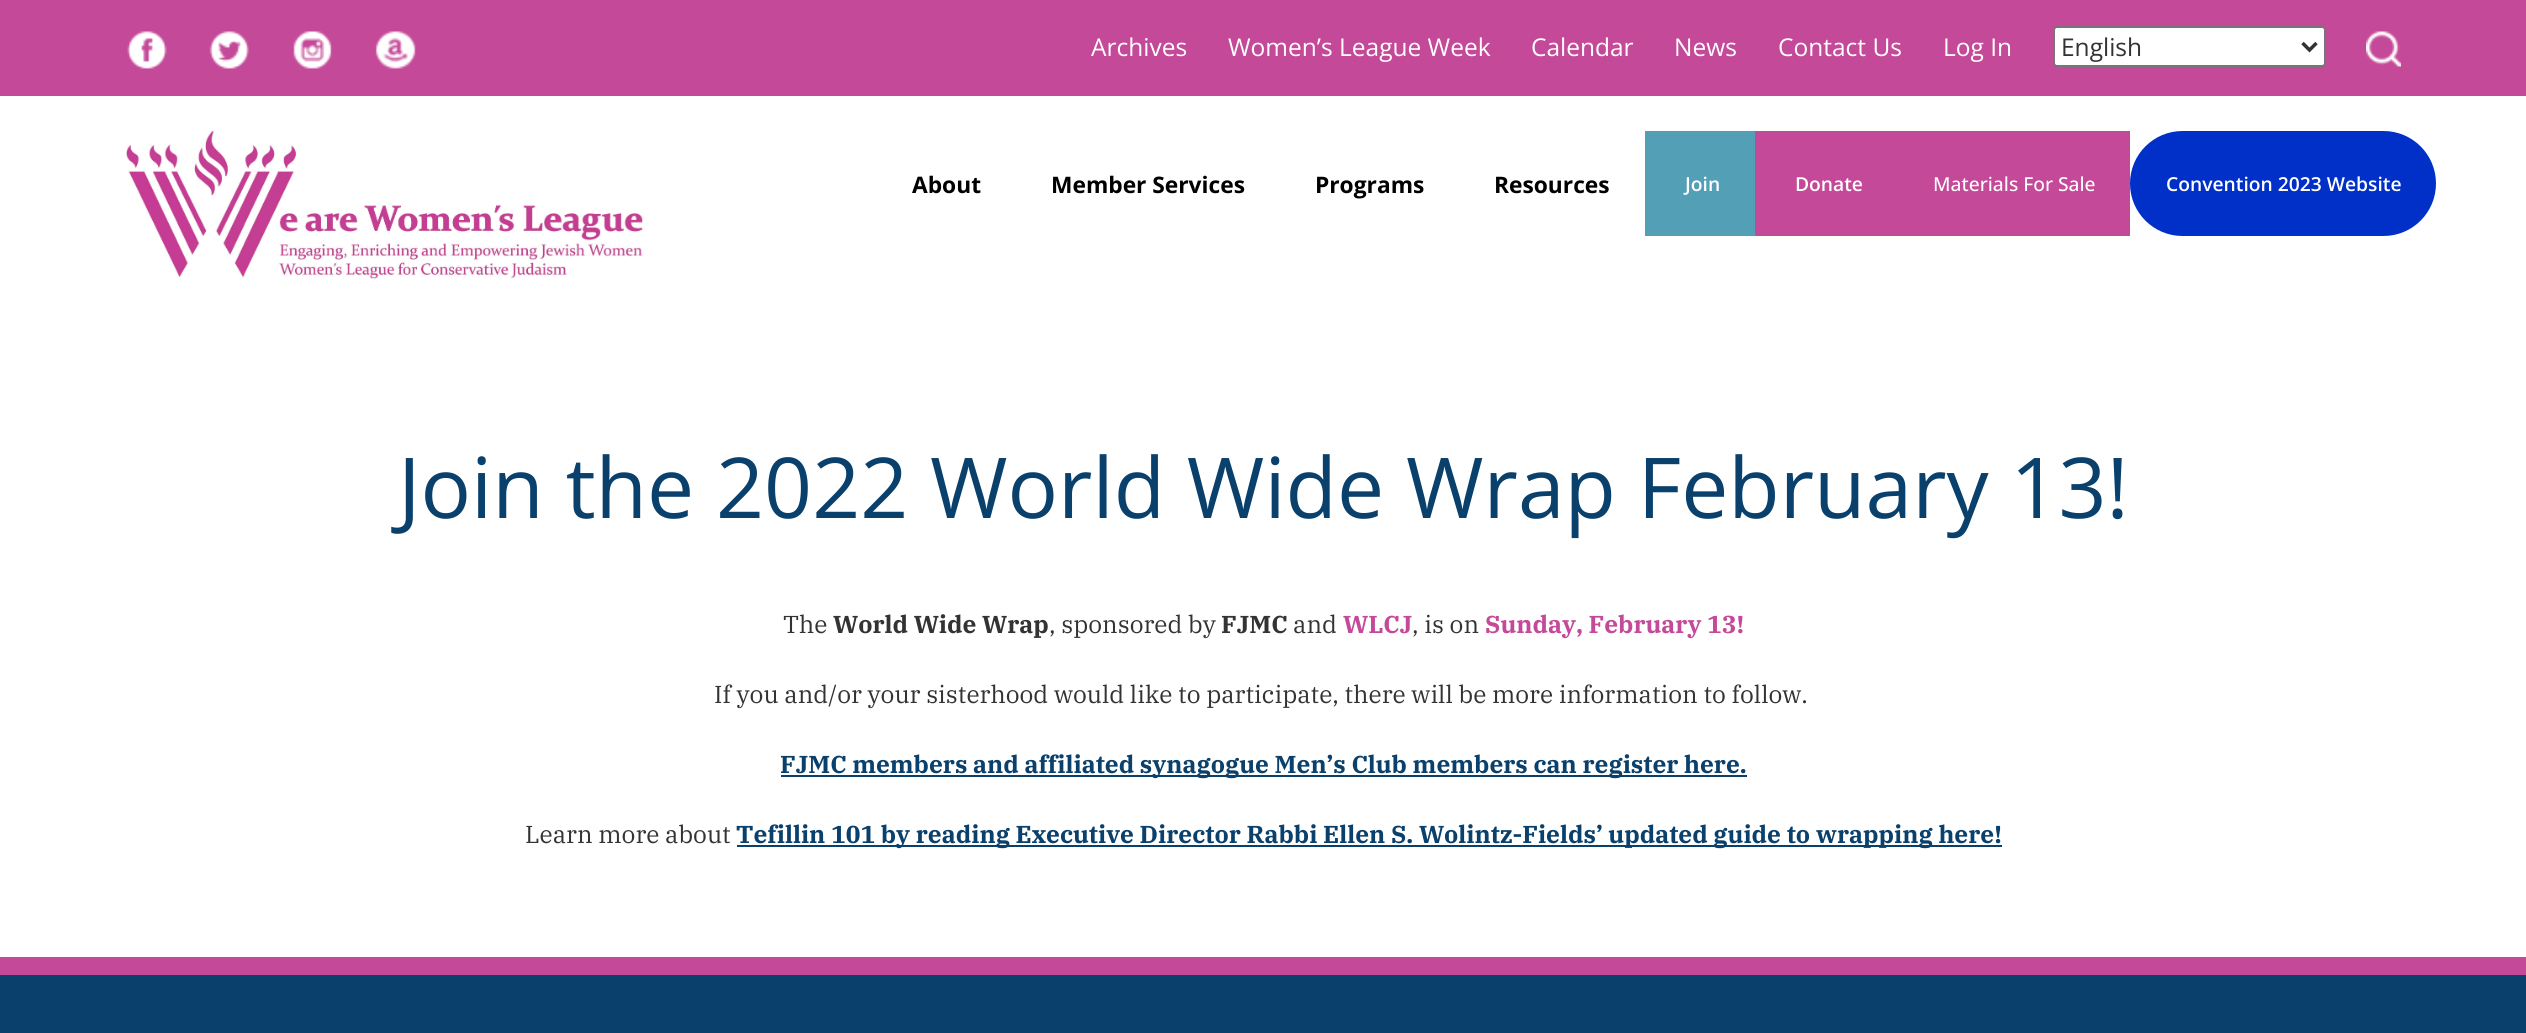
import math
import cairo


def use_color(cr, r, g, b):
  cr.set_source_rgb(r / 255, g / 255, b / 255)

def text(cr, x, y, s, family, size, color, bold=False, italic=False):
  cr.select_font_face(family, cairo.FONT_SLANT_ITALIC if italic else cairo.FONT_SLANT_NORMAL, cairo.FONT_WEIGHT_BOLD if bold else cairo.FONT_WEIGHT_NORMAL)
  cr.set_font_size(size)
  use_color(cr, *color)
  cr.move_to(x, y)
  cr.show_text(s)

def box(cr, x, y, w, h, *color):
  use_color(cr, *color)
  cr.rectangle(x, y, w, h)
  cr.fill()

def round_rect(cr, x, y, w, h, r):
  cr.new_sub_path()
  for i, (u, v) in enumerate([(x + w - r, y + h - r), (x + r, y + h - r), (x + r, y + r), (x + w - r, y + r)]):
    cr.arc(u, v, r, i * math.pi / 2, (i + 1) * math.pi / 2)
  cr.close_path()

def picture(cr, path, x, y, w, h):
  cr.save()
  cr.set_source_surface(cairo.ImageSurface.create_from_png(path), x, y)
  cr.rectangle(x, y, w, h)
  cr.fill()
  cr.restore()

def draw(cr):
  use_color(cr, 255, 255, 255)
  cr.paint()
  box(cr, 0, 0, 2526, 96, 196, 73, 153)
  picture(cr, "img_01.png", 127, 31, 40, 38)
  picture(cr, "img_02.png", 209, 31, 40, 38)
  picture(cr, "img_03.png", 293, 31, 39, 38)
  picture(cr, "img_04.png", 375, 31, 41, 38)
  use_color(cr, 255, 255, 255)
  round_rect(cr, 2054, 27, 271, 39, 3)
  cr.fill_preserve()
  use_color(cr, 118, 118, 118)
  cr.stroke()
  cr.new_path()
  cr.move_to(2302.5, 43)
  cr.line_to(2309.5, 50)
  cr.line_to(2316.5, 43)
  use_color(cr, 51, 51, 51)
  cr.set_line_width(3.5)
  cr.stroke()
  picture(cr, "img_05.png", 2366, 31, 35, 36)
  picture(cr, "img_06.png", 126, 131, 517, 148)
  box(cr, 1645, 131, 110, 105, 82, 159, 182)
  box(cr, 1755, 131, 375, 105, 196, 73, 153)
  use_color(cr, 0, 48, 200)
  round_rect(cr, 2130, 131, 306, 105, 52.5)
  cr.fill()
  box(cr, 781, 775, 966, 2, 10, 64, 108)
  box(cr, 737, 845, 1265, 2, 10, 64, 108)
  box(cr, 0, 975, 2526, 58, 10, 64, 108)
  box(cr, 0, 957, 2526, 18, 196, 73, 153)
  text(cr, 1091, 56, "Archives", "Open Sans", 24.5, (255, 255, 255))
  text(cr, 1228, 56, "Women’s League Week", "Open Sans", 24.5, (255, 255, 255))
  text(cr, 1531, 56, "Calendar", "Open Sans", 24.5, (255, 255, 255))
  text(cr, 1674, 56, "News", "Open Sans", 24.5, (255, 255, 255))
  text(cr, 1778, 56, "Contact Us", "Open Sans", 24.5, (255, 255, 255))
  text(cr, 1943, 56, "Log In", "Open Sans", 24.5, (255, 255, 255))
  text(cr, 2061, 56, "English", "Open Sans", 24.5, (51, 51, 51))
  text(cr, 912, 193, "About", "Open Sans", 22.75, (0, 0, 0), bold=True)
  text(cr, 1051, 193, "Member Services", "Open Sans", 22.75, (0, 0, 0), bold=True)
  text(cr, 1315, 193, "Programs", "Open Sans", 22.75, (0, 0, 0), bold=True)
  text(cr, 1494, 193, "Resources", "Open Sans", 22.75, (0, 0, 0), bold=True)
  text(cr, 1685, 191, "Join", "Open Sans SemiBold", 19.25, (255, 255, 255))
  text(cr, 1795, 191, "Donate", "Open Sans SemiBold", 19.25, (255, 255, 255))
  text(cr, 1933, 191, "Materials For Sale", "Open Sans Medium", 19.25, (255, 255, 255))
  text(cr, 2166, 191, "Convention 2023 Website", "Open Sans SemiBold", 19.25, (255, 255, 255))
  text(cr, 398, 518, "Join the 2022 World Wide Wrap February 13!", "Open Sans", 84, (10, 64, 108))
  text(cr, 783, 633, "The", "IBM Plex Serif", 24.5, (51, 51, 51))
  text(cr, 833, 633, "World Wide Wrap", "IBM Plex Serif", 24.5, (51, 51, 51), bold=True)
  text(cr, 1049, 633, ", sponsored by", "IBM Plex Serif", 24.5, (51, 51, 51))
  text(cr, 1221, 633, "FJMC", "IBM Plex Serif", 24.5, (51, 51, 51), bold=True)
  text(cr, 1293, 633, "and", "IBM Plex Serif", 24.5, (51, 51, 51))
  text(cr, 1343, 633, "WLCJ", "IBM Plex Serif", 24.5, (196, 73, 153), bold=True)
  text(cr, 1412, 633, ", is on", "IBM Plex Serif", 24.5, (51, 51, 51))
  text(cr, 1485, 633, "Sunday, February 13!", "IBM Plex Serif", 24.5, (196, 73, 153), bold=True)
  text(cr, 714, 703, "If you and/or your sisterhood would like to participate, there will be more information to follow.", "IBM Plex Serif", 24.5, (51, 51, 51))
  text(cr, 780, 773, "FJMC members and affiliated synagogue Men’s Club members can register here.", "IBM Plex Serif", 24.5, (10, 64, 108), bold=True)
  text(cr, 525, 843, "Learn more about", "IBM Plex Serif", 24.5, (51, 51, 51))
  text(cr, 736, 843, "Tefillin 101 by reading Executive Director Rabbi Ellen S. Wolintz-Fields’ updated guide to wrapping here!", "IBM Plex Serif", 24.5, (10, 64, 108), bold=True)


surface = cairo.ImageSurface(cairo.FORMAT_RGB24, 2526, 1033)
cr = cairo.Context(surface)
options = cairo.FontOptions()
options.set_hint_metrics(cairo.HINT_METRICS_OFF)
options.set_hint_style(cairo.HINT_STYLE_NONE)
cr.set_font_options(options)
cr.set_miter_limit(4)
draw(cr)
surface.write_to_png("out.png")
